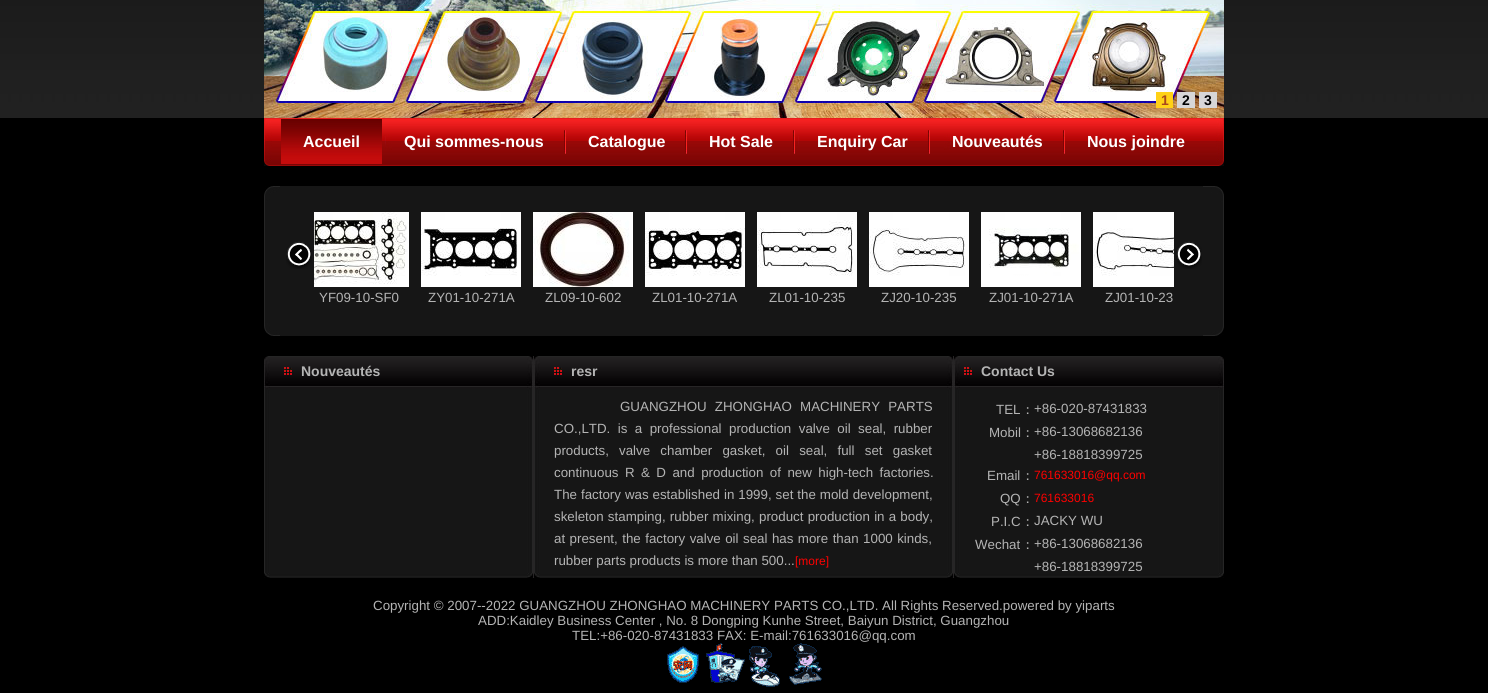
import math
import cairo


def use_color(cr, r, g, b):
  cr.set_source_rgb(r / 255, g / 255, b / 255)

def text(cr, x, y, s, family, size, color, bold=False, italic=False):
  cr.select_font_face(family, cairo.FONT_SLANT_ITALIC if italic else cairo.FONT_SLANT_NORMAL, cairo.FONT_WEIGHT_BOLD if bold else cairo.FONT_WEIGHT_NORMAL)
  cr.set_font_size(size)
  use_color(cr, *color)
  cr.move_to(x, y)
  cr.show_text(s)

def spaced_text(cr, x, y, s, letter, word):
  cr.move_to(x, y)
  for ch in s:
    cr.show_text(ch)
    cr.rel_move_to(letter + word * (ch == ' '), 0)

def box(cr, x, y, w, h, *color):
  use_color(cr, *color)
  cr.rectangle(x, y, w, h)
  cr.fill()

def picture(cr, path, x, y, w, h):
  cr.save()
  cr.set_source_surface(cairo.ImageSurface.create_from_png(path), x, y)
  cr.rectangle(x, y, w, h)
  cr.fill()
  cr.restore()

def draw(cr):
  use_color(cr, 0, 0, 0)
  cr.paint()
  picture(cr, "img_01.png", 0, 0, 1488, 118)
  picture(cr, "img_02.png", 264, 0, 960, 118)
  box(cr, 1156, 92, 17, 16, 255, 209, 22)
  box(cr, 1177, 92, 18, 16, 215, 214, 215)
  box(cr, 1199, 92, 18, 16, 215, 214, 215)
  picture(cr, "img_03.png", 264, 118, 960, 48)
  picture(cr, "img_04.png", 281, 119, 101, 45)
  picture(cr, "img_05.png", 564, 130, 2, 24)
  picture(cr, "img_05.png", 685, 130, 2, 24)
  picture(cr, "img_05.png", 793, 130, 2, 24)
  picture(cr, "img_05.png", 928, 130, 2, 24)
  picture(cr, "img_05.png", 1063, 130, 2, 24)
  box(cr, 280, 186, 923, 150, 22, 22, 22)
  picture(cr, "img_06.png", 1203, 186, 21, 150)
  picture(cr, "img_07.png", 264, 186, 16, 150)
  picture(cr, "img_08.png", 286, 241, 26, 28)
  picture(cr, "img_09.png", 1176, 241, 26, 28)
  picture(cr, "img_10.png", 314, 212, 95, 75)
  picture(cr, "img_11.png", 421, 212, 100, 75)
  picture(cr, "img_12.png", 533, 212, 100, 75)
  picture(cr, "img_13.png", 645, 212, 100, 75)
  picture(cr, "img_14.png", 757, 212, 100, 75)
  picture(cr, "img_15.png", 869, 212, 100, 75)
  picture(cr, "img_16.png", 981, 212, 100, 75)
  picture(cr, "img_17.png", 1093, 212, 81, 75)
  picture(cr, "img_18.png", 270, 356, 948, 222)
  picture(cr, "img_19.png", 264, 356, 6, 222)
  picture(cr, "img_20.png", 1218, 356, 6, 222)
  box(cr, 533, 356, 1, 222, 39, 37, 38)
  picture(cr, "img_20.png", 527, 356, 6, 222)
  picture(cr, "img_21.png", 284, 367, 8, 8)
  picture(cr, "img_19.png", 534, 356, 6, 222)
  box(cr, 953, 356, 1, 222, 39, 37, 38)
  picture(cr, "img_20.png", 947, 356, 6, 222)
  picture(cr, "img_21.png", 554, 367, 8, 8)
  picture(cr, "img_19.png", 954, 356, 6, 222)
  picture(cr, "img_21.png", 964, 367, 8, 8)
  picture(cr, "img_22.png", 667, 643, 155, 44)
  text(cr, 1161, 105, "1", "Liberation Sans", 14, (168, 71, 28), bold=True)
  text(cr, 1182, 105, "2", "Liberation Sans", 14, (0, 0, 0), bold=True)
  text(cr, 1204, 105, "3", "Liberation Sans", 14, (0, 0, 0), bold=True)
  text(cr, 303, 147, "Accueil", "Liberation Sans", 16, (255, 255, 255), bold=True)
  text(cr, 404, 147, "Qui sommes-nous", "Liberation Sans", 16, (255, 255, 255), bold=True)
  text(cr, 588, 147, "Catalogue", "Liberation Sans", 16, (255, 255, 255), bold=True)
  text(cr, 709, 147, "Hot Sale", "Liberation Sans", 16, (255, 255, 255), bold=True)
  text(cr, 817, 147, "Enquiry Car", "Liberation Sans", 16, (255, 255, 255), bold=True)
  text(cr, 952, 147, "Nouveautés", "Liberation Sans", 16, (255, 255, 255), bold=True)
  text(cr, 1087, 147, "Nous joindre", "Liberation Sans", 16, (255, 255, 255), bold=True)
  text(cr, 319, 302, "YF09-10-SF0", "Liberation Sans", 13.33, (180, 180, 180))
  text(cr, 428, 302, "ZY01-10-271A", "Liberation Sans", 13.33, (180, 180, 180))
  text(cr, 545, 302, "ZL09-10-602", "Liberation Sans", 13.33, (180, 180, 180))
  text(cr, 652, 302, "ZL01-10-271A", "Liberation Sans", 13.33, (180, 180, 180))
  text(cr, 769, 302, "ZL01-10-235", "Liberation Sans", 13.33, (180, 180, 180))
  text(cr, 881, 302, "ZJ20-10-235", "Liberation Sans", 13.33, (180, 180, 180))
  text(cr, 989, 302, "ZJ01-10-271A", "Liberation Sans", 13.33, (180, 180, 180))
  text(cr, 1105, 302, "ZJ01-10-23", "Liberation Sans", 13.33, (180, 180, 180))
  text(cr, 301, 376, "Nouveautés", "Liberation Sans", 14, (180, 180, 180), bold=True)
  text(cr, 571, 376, "resr", "Liberation Sans", 14, (180, 180, 180), bold=True)
  cr.select_font_face("Liberation Sans")
  cr.set_font_size(13.33)
  spaced_text(cr, 620, 411, "GUANGZHOU ZHONGHAO MACHINERY PARTS", 0, 4.5)
  spaced_text(cr, 554, 433, "CO.,LTD. is a professional production valve oil seal, rubber", 0, 3.75)
  spaced_text(cr, 554, 455, "products, valve chamber gasket, oil seal, full set gasket", 0, 6.5)
  spaced_text(cr, 554, 477, "continuous R & D and production of new high-tech factories.", 0, 2.75)
  spaced_text(cr, 554, 499, "The factory was established in 1999, set the mold development,", 0, 0.25)
  spaced_text(cr, 554, 521, "skeleton stamping, rubber mixing, product production in a body,", 0, 0.5)
  spaced_text(cr, 554, 543, "at present, the factory valve oil seal has more than 1000 kinds,", 0, 0.75)
  text(cr, 554, 565, "rubber parts products is more than 500...", "Liberation Sans", 13.33, (180, 180, 180))
  text(cr, 795, 565, "[more]", "Liberation Sans", 12, (255, 0, 0))
  text(cr, 981, 376, "Contact Us", "Liberation Sans", 14, (180, 180, 180), bold=True)
  text(cr, 996, 414, "TEL", "Liberation Sans", 13.33, (180, 180, 180))
  text(cr, 1021, 414, "：", "WenQuanYi Zen Hei Medium", 13.33, (180, 180, 180))
  text(cr, 1034, 413, "+86-020-87431833", "Liberation Sans", 13.33, (180, 180, 180))
  text(cr, 989, 437, "Mobil", "Liberation Sans", 13.33, (180, 180, 180))
  text(cr, 1021, 437, "：", "WenQuanYi Zen Hei Medium", 13.33, (180, 180, 180))
  text(cr, 1034, 436, "+86-13068682136", "Liberation Sans", 13.33, (180, 180, 180))
  text(cr, 1034, 459, "+86-18818399725", "Liberation Sans", 13.33, (180, 180, 180))
  text(cr, 987, 480, "Email", "Liberation Sans", 13.33, (180, 180, 180))
  text(cr, 1021, 480, "：", "WenQuanYi Zen Hei Medium", 13.33, (180, 180, 180))
  text(cr, 1034, 479, "761633016@qq.com", "Liberation Sans", 12, (255, 0, 0))
  text(cr, 1000, 503, "QQ", "Liberation Sans", 13.33, (180, 180, 180))
  text(cr, 1021, 503, "：", "WenQuanYi Zen Hei Medium", 13.33, (180, 180, 180))
  text(cr, 1034, 502, "761633016", "Liberation Sans", 12, (255, 0, 0))
  text(cr, 991, 526, "P.I.C", "Liberation Sans", 13.33, (180, 180, 180))
  text(cr, 1021, 526, "：", "WenQuanYi Zen Hei Medium", 13.33, (180, 180, 180))
  text(cr, 1034, 525, "JACKY WU", "Liberation Sans", 13.33, (180, 180, 180))
  text(cr, 975, 549, "Wechat", "Liberation Sans", 13.33, (180, 180, 180))
  text(cr, 1021, 549, "：", "WenQuanYi Zen Hei Medium", 13.33, (180, 180, 180))
  text(cr, 1034, 548, "+86-13068682136", "Liberation Sans", 13.33, (180, 180, 180))
  text(cr, 1034, 571, "+86-18818399725", "Liberation Sans", 13.33, (180, 180, 180))
  text(cr, 373, 610, "Copyright © 2007--2022 GUANGZHOU ZHONGHAO MACHINERY PARTS CO.,LTD. All Rights Reserved.powered by yiparts", "Liberation Sans", 13.33, (180, 180, 180))
  text(cr, 478, 625, "ADD:Kaidley Business Center , No. 8 Dongping Kunhe Street, Baiyun District, Guangzhou", "Liberation Sans", 13.33, (180, 180, 180))
  text(cr, 572, 640, "TEL:+86-020-87431833 FAX: E-mail:761633016@qq.com", "Liberation Sans", 13.33, (180, 180, 180))


surface = cairo.ImageSurface(cairo.FORMAT_RGB24, 1488, 693)
cr = cairo.Context(surface)
options = cairo.FontOptions()
options.set_hint_metrics(cairo.HINT_METRICS_OFF)
options.set_hint_style(cairo.HINT_STYLE_NONE)
cr.set_font_options(options)
cr.set_miter_limit(4)
draw(cr)
surface.write_to_png("out.png")
